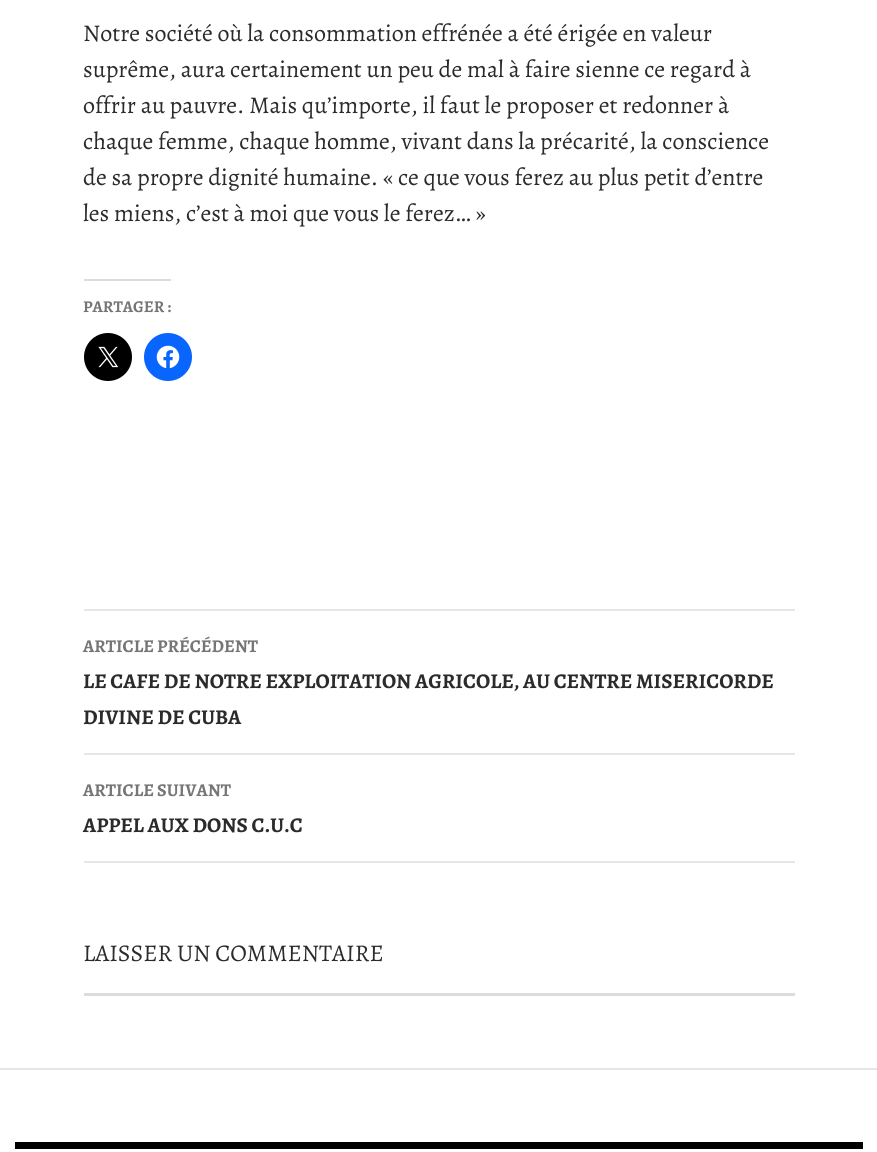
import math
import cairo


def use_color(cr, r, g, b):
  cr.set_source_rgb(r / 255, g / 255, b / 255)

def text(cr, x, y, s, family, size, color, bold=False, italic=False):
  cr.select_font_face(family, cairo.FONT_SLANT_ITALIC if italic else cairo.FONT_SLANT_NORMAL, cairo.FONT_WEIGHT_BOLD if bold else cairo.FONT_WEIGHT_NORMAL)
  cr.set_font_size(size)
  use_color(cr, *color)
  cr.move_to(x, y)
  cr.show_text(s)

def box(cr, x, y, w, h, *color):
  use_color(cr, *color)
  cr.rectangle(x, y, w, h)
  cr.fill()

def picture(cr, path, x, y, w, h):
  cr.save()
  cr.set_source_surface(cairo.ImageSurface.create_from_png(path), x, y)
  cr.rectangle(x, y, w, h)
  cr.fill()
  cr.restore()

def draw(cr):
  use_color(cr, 255, 255, 255)
  cr.paint()
  box(cr, 84, 279, 87, 2, 220, 220, 222)
  use_color(cr, 0, 0, 0)
  cr.arc(108, 357, 24, 0, 2 * math.pi)
  cr.fill()
  picture(cr, "img_01.png", 98, 346, 21, 22)
  use_color(cr, 8, 102, 255)
  cr.arc(168, 357, 24, 0, 2 * math.pi)
  cr.fill()
  picture(cr, "img_02.png", 156, 345, 24, 23)
  box(cr, 84, 609, 711, 2, 230, 230, 230)
  box(cr, 84, 753, 711, 2, 230, 230, 230)
  box(cr, 84, 861, 711, 2, 230, 230, 230)
  box(cr, 84, 993, 711, 3, 220, 220, 222)
  box(cr, 0, 1068, 877, 2, 230, 230, 230)
  box(cr, 15, 1142, 848, 7, 0, 0, 0)
  text(cr, 83, 41, "Notre société où la consommation effrénée a été érigée en valeur", "Alegreya", 24, (43, 43, 43))
  text(cr, 83, 77, "suprême, aura certainement un peu de mal à faire sienne ce regard à", "Alegreya", 24, (43, 43, 43))
  text(cr, 83, 113, "offrir au pauvre. Mais qu’importe, il faut le proposer et redonner à", "Alegreya", 24, (43, 43, 43))
  text(cr, 83, 149, "chaque femme, chaque homme, vivant dans la précarité, la conscience", "Alegreya", 24, (43, 43, 43))
  text(cr, 83, 185, "de sa propre dignité humaine. « ce que vous ferez au plus petit d’entre", "Alegreya", 24, (43, 43, 43))
  text(cr, 83, 221, "les miens, c’est à moi que vous le ferez… »", "Alegreya", 24, (43, 43, 43))
  text(cr, 83, 312, "PARTAGER :", "Alegreya", 16.5, (118, 118, 118), bold=True)
  text(cr, 83, 652, "ARTICLE PRÉCÉDENT", "Alegreya", 18, (118, 118, 118), bold=True)
  text(cr, 83, 688, "LE CAFE DE NOTRE EXPLOITATION AGRICOLE, AU CENTRE MISERICORDE", "Alegreya", 21, (43, 43, 43), bold=True)
  text(cr, 83, 724, "DIVINE DE CUBA", "Alegreya", 21, (43, 43, 43), bold=True)
  text(cr, 83, 796, "ARTICLE SUIVANT", "Alegreya", 18, (118, 118, 118), bold=True)
  text(cr, 83, 832, "APPEL AUX DONS C.U.C", "Alegreya", 21, (43, 43, 43), bold=True)
  text(cr, 83, 961, "LAISSER UN COMMENTAIRE", "Alegreya", 24, (43, 43, 43))


surface = cairo.ImageSurface(cairo.FORMAT_RGB24, 877, 1152)
cr = cairo.Context(surface)
options = cairo.FontOptions()
options.set_hint_metrics(cairo.HINT_METRICS_OFF)
options.set_hint_style(cairo.HINT_STYLE_NONE)
cr.set_font_options(options)
cr.set_miter_limit(4)
draw(cr)
surface.write_to_png("out.png")
